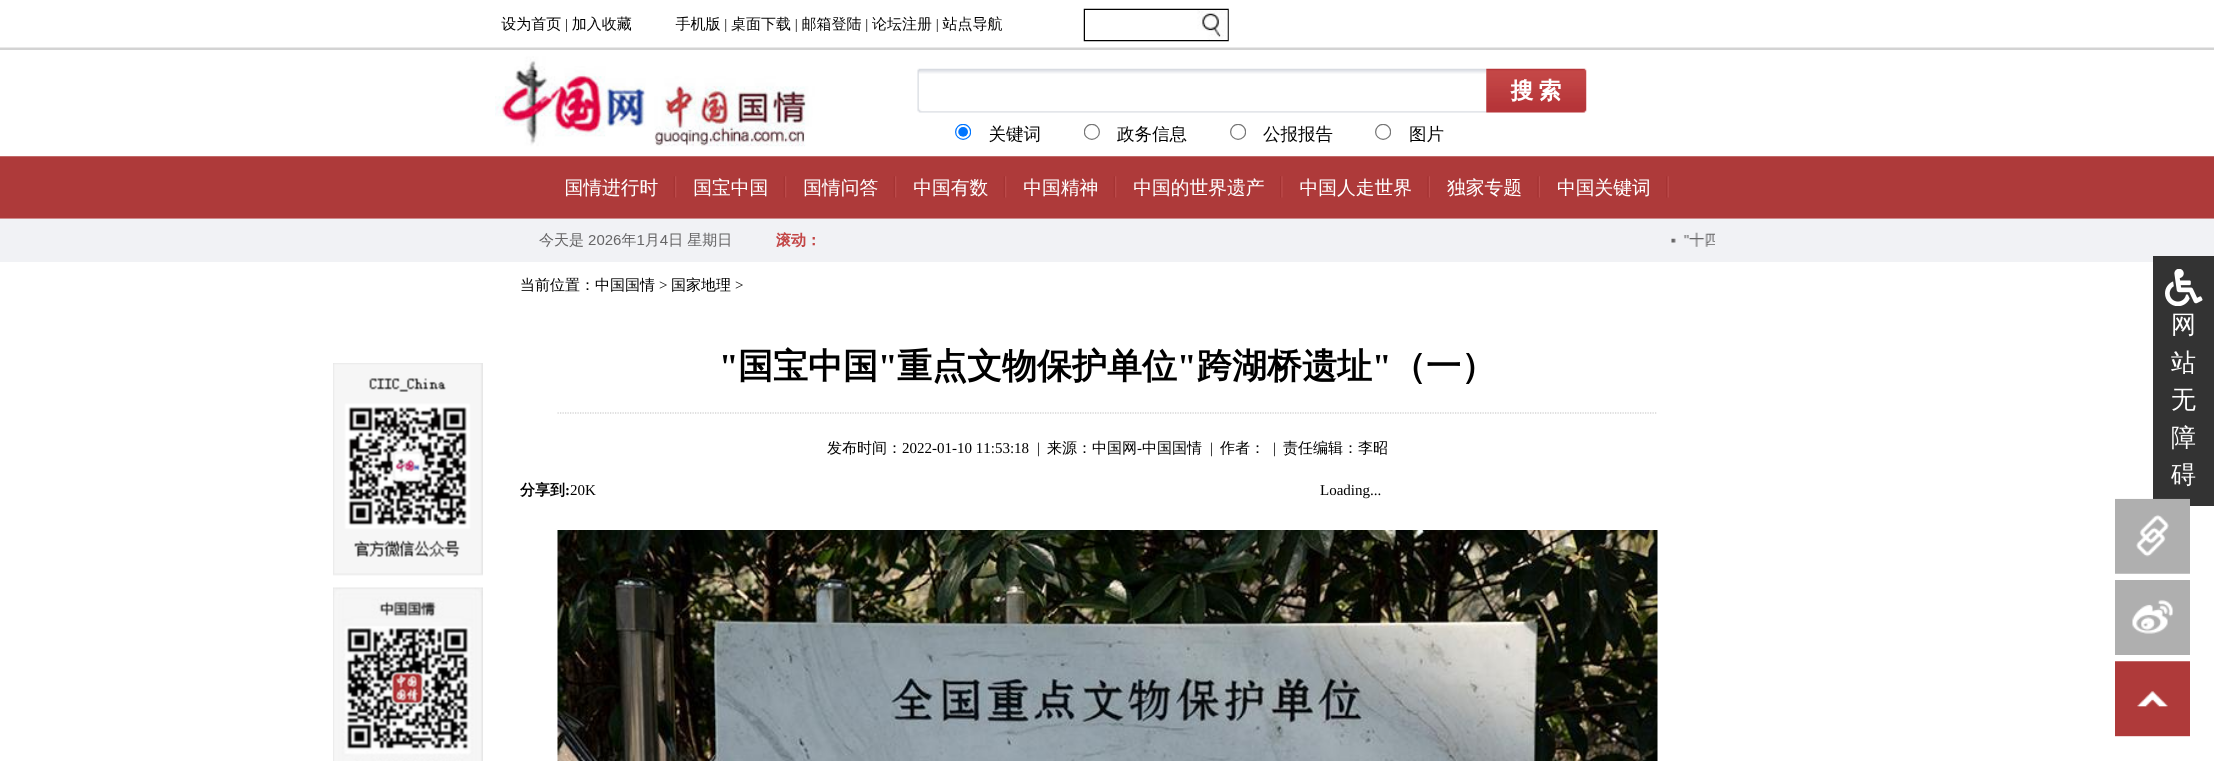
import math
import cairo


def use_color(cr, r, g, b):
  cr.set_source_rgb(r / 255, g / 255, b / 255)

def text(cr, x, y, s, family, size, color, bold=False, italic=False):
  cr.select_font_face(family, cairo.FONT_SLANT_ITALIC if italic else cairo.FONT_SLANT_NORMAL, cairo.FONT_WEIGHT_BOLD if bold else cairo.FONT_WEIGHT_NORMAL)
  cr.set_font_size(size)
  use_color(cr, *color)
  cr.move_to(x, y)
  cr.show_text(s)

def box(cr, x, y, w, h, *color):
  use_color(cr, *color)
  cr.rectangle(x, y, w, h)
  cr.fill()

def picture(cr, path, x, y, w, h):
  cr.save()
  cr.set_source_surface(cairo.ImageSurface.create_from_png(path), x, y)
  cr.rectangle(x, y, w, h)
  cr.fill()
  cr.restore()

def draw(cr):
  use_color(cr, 255, 255, 255)
  cr.paint()
  picture(cr, "img_01.png", 0, 8, 2214, 254)
  picture(cr, "img_02.png", 333, 363, 150, 213)
  picture(cr, "img_03.png", 333, 587, 150, 174)
  cr.new_path()
  cr.move_to(557.5, 413)
  cr.line_to(1657.5, 413)
  use_color(cr, 204, 204, 204)
  cr.set_line_width(1.2)
  cr.set_dash([1.25, 1.25])
  cr.stroke()
  picture(cr, "img_04.png", 557, 530, 1101, 231)
  box(cr, 2153, 256, 61, 250, 51, 51, 51)
  picture(cr, "img_05.png", 2165, 269, 38, 37)
  picture(cr, "img_06.png", 2115, 498, 75, 76)
  picture(cr, "img_07.png", 2115, 580, 75, 75)
  picture(cr, "img_08.png", 2115, 661, 75, 76)
  text(cr, 520, 290, "当前位置：中国国情", "WenQuanYi Zen Hei Medium", 15, (0, 0, 0))
  text(cr, 659, 290, ">", "Liberation Serif", 15, (0, 0, 0))
  text(cr, 671, 290, "国家地理", "WenQuanYi Zen Hei Medium", 15, (0, 0, 0))
  text(cr, 735, 290, ">", "Liberation Serif", 15, (0, 0, 0))
  text(cr, 719, 378, "\"", "Liberation Serif", 35, (0, 0, 0), bold=True)
  text(cr, 738, 378, "国宝中国", "WenQuanYi Zen Hei", 35, (0, 0, 0), bold=True)
  text(cr, 878, 378, "\"", "Liberation Serif", 35, (0, 0, 0), bold=True)
  text(cr, 897, 378, "重点文物保护单位", "WenQuanYi Zen Hei", 35, (0, 0, 0), bold=True)
  text(cr, 1177, 378, "\"", "Liberation Serif", 35, (0, 0, 0), bold=True)
  text(cr, 1197, 378, "跨湖桥遗址", "WenQuanYi Zen Hei", 35, (0, 0, 0), bold=True)
  text(cr, 1372, 378, "\"", "Liberation Serif", 35, (0, 0, 0), bold=True)
  text(cr, 1391, 378, "（一）", "WenQuanYi Zen Hei", 35, (0, 0, 0), bold=True)
  text(cr, 827, 453, "发布时间：", "WenQuanYi Zen Hei Medium", 15, (0, 0, 0))
  text(cr, 902, 453, "2022-01-10 11:53:18", "Liberation Serif", 15, (0, 0, 0))
  text(cr, 1037, 453, "|", "Liberation Serif", 15, (0, 0, 0))
  text(cr, 1047, 453, "来源：中国网", "WenQuanYi Zen Hei Medium", 15, (0, 0, 0))
  text(cr, 1137, 453, "-", "Liberation Serif", 15, (0, 0, 0))
  text(cr, 1142, 453, "中国国情", "WenQuanYi Zen Hei Medium", 15, (0, 0, 0))
  text(cr, 1210, 453, "|", "Liberation Serif", 15, (0, 0, 0))
  text(cr, 1220, 453, "作者：", "WenQuanYi Zen Hei Medium", 15, (0, 0, 0))
  text(cr, 1273, 453, "|", "Liberation Serif", 15, (0, 0, 0))
  text(cr, 1283, 453, "责任编辑：李昭", "WenQuanYi Zen Hei Medium", 15, (0, 0, 0))
  text(cr, 520, 495, "分享到", "WenQuanYi Zen Hei", 15, (0, 0, 0), bold=True)
  text(cr, 565, 495, ":", "Liberation Serif", 15, (0, 0, 0), bold=True)
  text(cr, 570, 495, "20K", "Liberation Serif", 15, (0, 0, 0))
  text(cr, 1320, 495, "Loading...", "Liberation Serif", 15, (0, 0, 0))
  text(cr, 2171, 333, "网", "WenQuanYi Zen Hei Medium", 25, (255, 255, 255))
  text(cr, 2171, 371, "站", "WenQuanYi Zen Hei Medium", 25, (255, 255, 255))
  text(cr, 2171, 408, "无", "WenQuanYi Zen Hei Medium", 25, (255, 255, 255))
  text(cr, 2171, 446, "障", "WenQuanYi Zen Hei Medium", 25, (255, 255, 255))
  text(cr, 2171, 483, "碍", "WenQuanYi Zen Hei Medium", 25, (255, 255, 255))


surface = cairo.ImageSurface(cairo.FORMAT_RGB24, 2214, 761)
cr = cairo.Context(surface)
options = cairo.FontOptions()
options.set_hint_metrics(cairo.HINT_METRICS_OFF)
options.set_hint_style(cairo.HINT_STYLE_NONE)
cr.set_font_options(options)
cr.set_miter_limit(4)
draw(cr)
surface.write_to_png("out.png")
